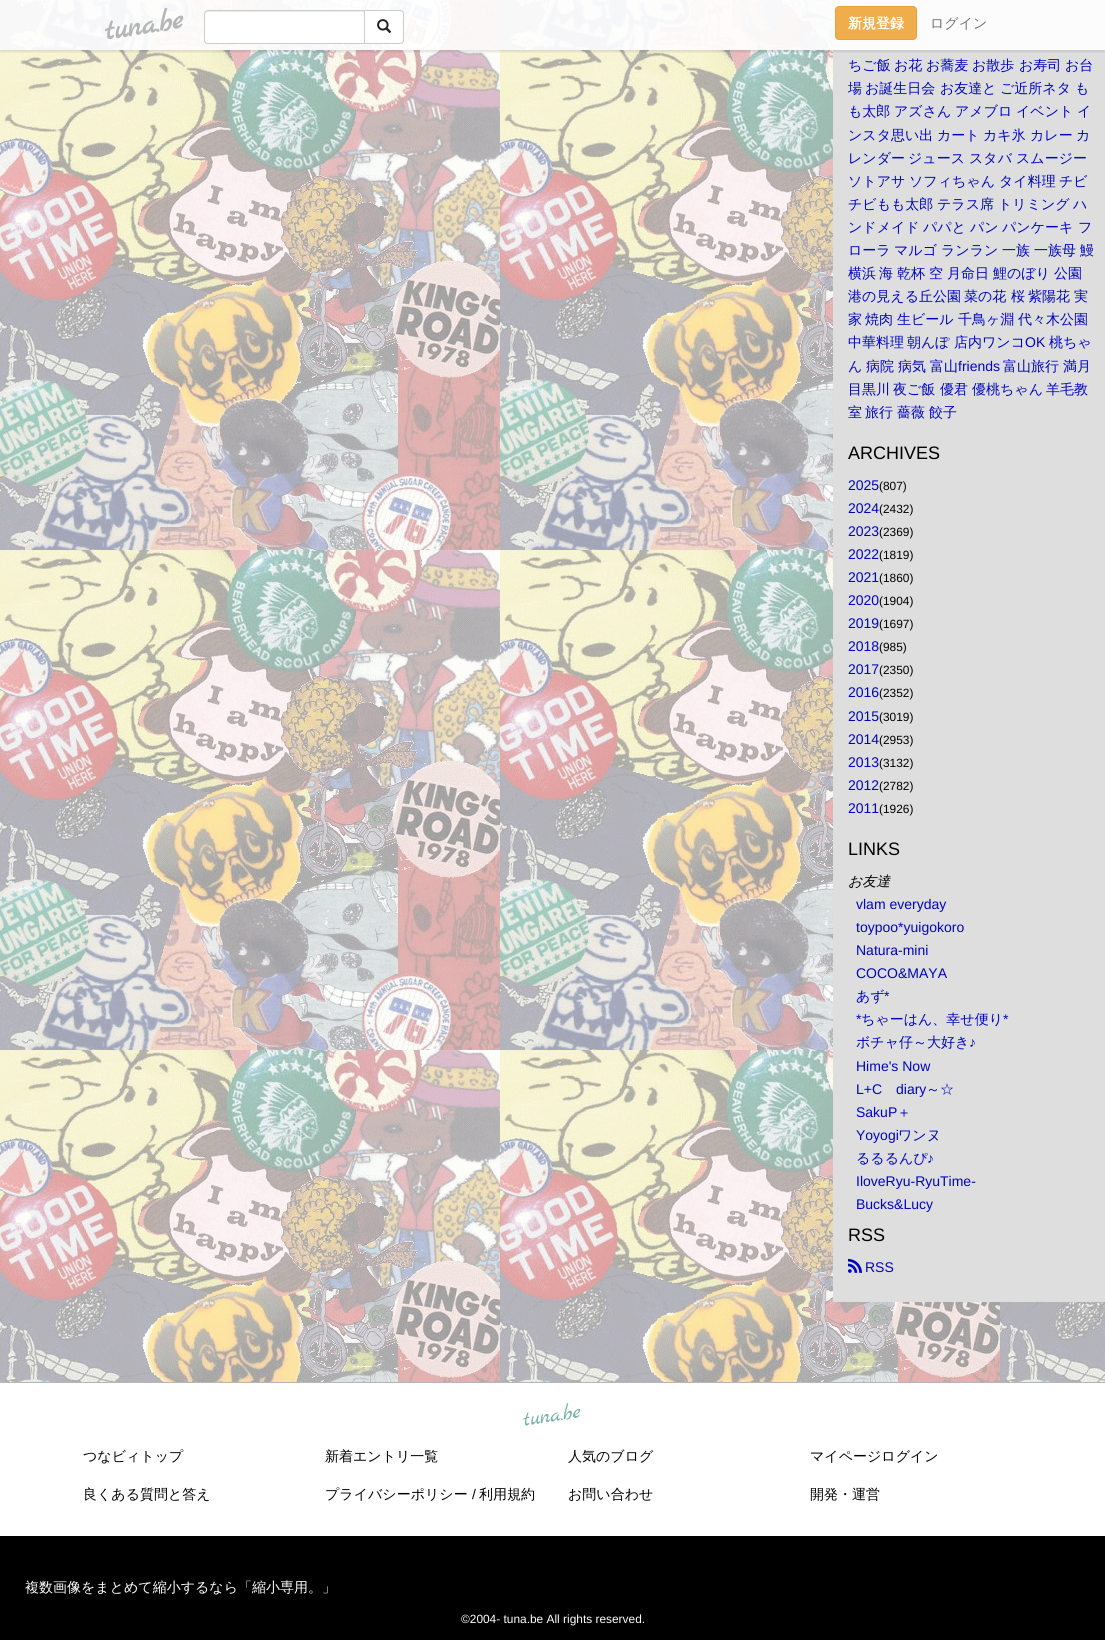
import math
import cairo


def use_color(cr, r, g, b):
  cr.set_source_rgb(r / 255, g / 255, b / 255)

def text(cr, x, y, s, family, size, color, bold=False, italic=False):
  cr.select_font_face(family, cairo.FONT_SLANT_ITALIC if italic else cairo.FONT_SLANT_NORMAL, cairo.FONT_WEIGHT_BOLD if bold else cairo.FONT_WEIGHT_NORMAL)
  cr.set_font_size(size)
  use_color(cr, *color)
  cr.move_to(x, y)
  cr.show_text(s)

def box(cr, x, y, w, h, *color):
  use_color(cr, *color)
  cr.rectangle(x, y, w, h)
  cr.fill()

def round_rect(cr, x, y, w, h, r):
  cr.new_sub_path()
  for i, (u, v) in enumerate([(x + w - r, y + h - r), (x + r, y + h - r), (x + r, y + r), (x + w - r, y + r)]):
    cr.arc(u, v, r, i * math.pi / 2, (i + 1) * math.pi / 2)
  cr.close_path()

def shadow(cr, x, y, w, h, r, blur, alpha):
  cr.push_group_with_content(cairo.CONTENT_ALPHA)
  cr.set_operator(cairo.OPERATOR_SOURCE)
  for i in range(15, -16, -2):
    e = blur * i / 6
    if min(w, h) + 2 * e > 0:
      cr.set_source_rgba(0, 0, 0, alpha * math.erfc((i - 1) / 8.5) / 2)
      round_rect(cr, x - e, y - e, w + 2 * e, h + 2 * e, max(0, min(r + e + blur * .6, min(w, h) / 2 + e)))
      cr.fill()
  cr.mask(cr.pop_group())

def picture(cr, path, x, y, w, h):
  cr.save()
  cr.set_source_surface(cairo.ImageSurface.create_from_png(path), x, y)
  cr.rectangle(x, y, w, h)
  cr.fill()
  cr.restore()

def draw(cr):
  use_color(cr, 255, 255, 255)
  cr.paint()
  picture(cr, "img_01.png", 0, 0, 1105, 1382)
  box(cr, 833, 0, 272, 1302, 222, 222, 222)
  cr.save()
  cr.rectangle(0, 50, 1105, 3)
  cr.clip()
  use_color(cr, 0, 0, 0)
  shadow(cr, 0, 2, 1105, 50, 0, 1, 0.1)
  cr.restore()
  cr.set_source_rgba(1, 1, 1, 0.9)
  cr.rectangle(0, 0, 1105, 50)
  cr.fill()
  use_color(cr, 255, 255, 255)
  cr.new_path()
  cr.move_to(208, 10)
  cr.line_to(365, 10)
  cr.line_to(365, 44)
  cr.line_to(208, 44)
  cr.curve_to(206, 44, 204, 42, 204, 40)
  cr.line_to(204, 14)
  cr.curve_to(204, 12, 206, 10, 208, 10)
  cr.close_path()
  cr.fill()
  use_color(cr, 236, 236, 236)
  cr.new_path()
  cr.move_to(208, 12)
  cr.line_to(364, 12)
  cr.line_to(364, 11)
  cr.line_to(207, 11)
  cr.curve_to(205, 11, 205, 13, 205, 15)
  cr.curve_to(205, 13, 206, 12, 208, 12)
  cr.close_path()
  cr.fill()
  cr.new_path()
  cr.move_to(208, 10.5)
  cr.line_to(364.5, 10.5)
  cr.line_to(364.5, 43.5)
  cr.line_to(208, 43.5)
  cr.curve_to(206, 43.5, 204.5, 42, 204.5, 40)
  cr.line_to(204.5, 14)
  cr.curve_to(204.5, 12, 206, 10.5, 208, 10.5)
  cr.close_path()
  use_color(cr, 204, 204, 204)
  cr.set_line_width(1)
  cr.stroke()
  use_color(cr, 255, 255, 255)
  cr.new_path()
  cr.move_to(364.5, 10.5)
  cr.line_to(400, 10.5)
  cr.curve_to(402, 10.5, 403.5, 12, 403.5, 14)
  cr.line_to(403.5, 40)
  cr.curve_to(403.5, 42, 402, 43.5, 400, 43.5)
  cr.line_to(364.5, 43.5)
  cr.close_path()
  cr.fill_preserve()
  use_color(cr, 204, 204, 204)
  cr.stroke()
  picture(cr, "img_02.png", 377, 19, 15, 14)
  use_color(cr, 240, 173, 78)
  round_rect(cr, 835.5, 6.5, 81, 33, 3.5)
  cr.fill_preserve()
  use_color(cr, 238, 162, 54)
  cr.stroke()
  picture(cr, "img_03.png", 848, 1258, 14, 15)
  box(cr, 0, 1382, 1105, 1, 182, 182, 182)
  box(cr, 0, 1536, 1105, 104, 0, 0, 0)
  cr.save()
  cr.translate(106, 40)
  cr.rotate(-9 * math.pi / 180)
  text(cr, 0, 0, "tuna.be", "Marck Script", 30, (182, 182, 182), bold=True)
  cr.restore()
  text(cr, 848, 28, "新規登録", "WenQuanYi Zen Hei", 14, (255, 255, 255), bold=True)
  text(cr, 930, 28, "ログイン", "WenQuanYi Zen Hei Medium", 14, (114, 114, 114))
  text(cr, 848, 70, "ちご飯", "WenQuanYi Zen Hei Medium", 14, (0, 5, 192))
  text(cr, 894, 70, "お花", "WenQuanYi Zen Hei Medium", 14, (0, 5, 192))
  text(cr, 926, 70, "お蕎麦", "WenQuanYi Zen Hei Medium", 14, (0, 5, 192))
  text(cr, 972, 70, "お散歩", "WenQuanYi Zen Hei Medium", 14, (0, 5, 192))
  text(cr, 1019, 70, "お寿司", "WenQuanYi Zen Hei Medium", 14, (0, 5, 192))
  text(cr, 1065, 70, "お台", "WenQuanYi Zen Hei Medium", 14, (0, 5, 192))
  text(cr, 848, 93, "場", "WenQuanYi Zen Hei Medium", 14, (0, 5, 192))
  text(cr, 865, 93, "お誕生日会", "WenQuanYi Zen Hei Medium", 14, (0, 5, 192))
  text(cr, 940, 93, "お友達と", "WenQuanYi Zen Hei Medium", 14, (0, 5, 192))
  text(cr, 1000, 93, "ご近所ネタ", "WenQuanYi Zen Hei Medium", 14, (0, 5, 192))
  text(cr, 1075, 93, "も", "WenQuanYi Zen Hei Medium", 14, (0, 5, 192))
  text(cr, 848, 116, "も太郎", "WenQuanYi Zen Hei Medium", 14, (0, 5, 192))
  text(cr, 894, 116, "アズさん", "WenQuanYi Zen Hei Medium", 14, (0, 5, 192))
  text(cr, 955, 116, "アメブロ", "WenQuanYi Zen Hei Medium", 14, (0, 5, 192))
  text(cr, 1016, 116, "イベント", "WenQuanYi Zen Hei Medium", 14, (0, 5, 192))
  text(cr, 1077, 116, "イ", "WenQuanYi Zen Hei Medium", 14, (0, 5, 192))
  text(cr, 848, 140, "ンスタ思い出", "WenQuanYi Zen Hei Medium", 14, (0, 5, 192))
  text(cr, 937, 140, "カート", "WenQuanYi Zen Hei Medium", 14, (0, 5, 192))
  text(cr, 983, 140, "カキ氷", "WenQuanYi Zen Hei Medium", 14, (0, 5, 192))
  text(cr, 1030, 140, "カレー", "WenQuanYi Zen Hei Medium", 14, (0, 5, 192))
  text(cr, 1076, 140, "カ", "WenQuanYi Zen Hei Medium", 14, (0, 5, 192))
  text(cr, 848, 163, "レンダー", "WenQuanYi Zen Hei Medium", 14, (0, 5, 192))
  text(cr, 908, 163, "ジュース", "WenQuanYi Zen Hei Medium", 14, (0, 5, 192))
  text(cr, 969, 163, "スタバ", "WenQuanYi Zen Hei Medium", 14, (0, 5, 192))
  text(cr, 1016, 163, "スムージー", "WenQuanYi Zen Hei Medium", 14, (0, 5, 192))
  text(cr, 848, 186, "ソトアサ", "WenQuanYi Zen Hei Medium", 14, (0, 5, 192))
  text(cr, 909, 186, "ソフィちゃん", "WenQuanYi Zen Hei Medium", 14, (0, 5, 192))
  text(cr, 999, 186, "タイ料理", "WenQuanYi Zen Hei Medium", 14, (0, 5, 192))
  text(cr, 1059, 186, "チビ", "WenQuanYi Zen Hei Medium", 14, (0, 5, 192))
  text(cr, 848, 209, "チビもも太郎", "WenQuanYi Zen Hei Medium", 14, (0, 5, 192))
  text(cr, 937, 209, "テラス席", "WenQuanYi Zen Hei Medium", 14, (0, 5, 192))
  text(cr, 998, 209, "トリミング", "WenQuanYi Zen Hei Medium", 14, (0, 5, 192))
  text(cr, 1073, 209, "ハ", "WenQuanYi Zen Hei Medium", 14, (0, 5, 192))
  text(cr, 848, 232, "ンドメイド", "WenQuanYi Zen Hei Medium", 14, (0, 5, 192))
  text(cr, 923, 232, "パパと", "WenQuanYi Zen Hei Medium", 14, (0, 5, 192))
  text(cr, 970, 232, "パン", "WenQuanYi Zen Hei Medium", 14, (0, 5, 192))
  text(cr, 1002, 232, "パンケーキ", "WenQuanYi Zen Hei Medium", 14, (0, 5, 192))
  text(cr, 1078, 232, "フ", "WenQuanYi Zen Hei Medium", 14, (0, 5, 192))
  text(cr, 848, 255, "ローラ", "WenQuanYi Zen Hei Medium", 14, (0, 5, 192))
  text(cr, 894, 255, "マルゴ", "WenQuanYi Zen Hei Medium", 14, (0, 5, 192))
  text(cr, 941, 255, "ランラン", "WenQuanYi Zen Hei Medium", 14, (0, 5, 192))
  text(cr, 1002, 255, "一族", "WenQuanYi Zen Hei Medium", 14, (0, 5, 192))
  text(cr, 1034, 255, "一族母", "WenQuanYi Zen Hei Medium", 14, (0, 5, 192))
  text(cr, 1080, 255, "鰻", "WenQuanYi Zen Hei Medium", 14, (0, 5, 192))
  text(cr, 848, 278, "横浜", "WenQuanYi Zen Hei Medium", 14, (0, 5, 192))
  text(cr, 879, 278, "海", "WenQuanYi Zen Hei Medium", 14, (0, 5, 192))
  text(cr, 897, 278, "乾杯", "WenQuanYi Zen Hei Medium", 14, (0, 5, 192))
  text(cr, 929, 278, "空", "WenQuanYi Zen Hei Medium", 14, (0, 5, 192))
  text(cr, 947, 278, "月命日", "WenQuanYi Zen Hei Medium", 14, (0, 5, 192))
  text(cr, 993, 278, "鯉のぼり", "WenQuanYi Zen Hei Medium", 14, (0, 5, 192))
  text(cr, 1054, 278, "公園", "WenQuanYi Zen Hei Medium", 14, (0, 5, 192))
  text(cr, 848, 301, "港の見える丘公園", "WenQuanYi Zen Hei Medium", 14, (0, 5, 192))
  text(cr, 964, 301, "菜の花", "WenQuanYi Zen Hei Medium", 14, (0, 5, 192))
  text(cr, 1011, 301, "桜", "WenQuanYi Zen Hei Medium", 14, (0, 5, 192))
  text(cr, 1028, 301, "紫陽花", "WenQuanYi Zen Hei Medium", 14, (0, 5, 192))
  text(cr, 1074, 301, "実", "WenQuanYi Zen Hei Medium", 14, (0, 5, 192))
  text(cr, 848, 324, "家", "WenQuanYi Zen Hei Medium", 14, (0, 5, 192))
  text(cr, 865, 324, "焼肉", "WenQuanYi Zen Hei Medium", 14, (0, 5, 192))
  text(cr, 897, 324, "生ビール", "WenQuanYi Zen Hei Medium", 14, (0, 5, 192))
  text(cr, 958, 324, "千鳥ヶ淵", "WenQuanYi Zen Hei Medium", 14, (0, 5, 192))
  text(cr, 1018, 324, "代々木公園", "WenQuanYi Zen Hei Medium", 14, (0, 5, 192))
  text(cr, 848, 347, "中華料理", "WenQuanYi Zen Hei Medium", 14, (0, 5, 192))
  text(cr, 907, 347, "朝んぽ", "WenQuanYi Zen Hei Medium", 14, (0, 5, 192))
  text(cr, 954, 347, "店内ワンコ", "WenQuanYi Zen Hei Medium", 14, (0, 5, 192))
  text(cr, 1025, 347, "OK", "Liberation Sans", 14, (0, 5, 192))
  text(cr, 1049, 347, "桃ちゃ", "WenQuanYi Zen Hei Medium", 14, (0, 5, 192))
  text(cr, 848, 371, "ん", "WenQuanYi Zen Hei Medium", 14, (0, 5, 192))
  text(cr, 866, 371, "病院", "WenQuanYi Zen Hei Medium", 14, (0, 5, 192))
  text(cr, 898, 371, "病気", "WenQuanYi Zen Hei Medium", 14, (0, 5, 192))
  text(cr, 930, 371, "富山", "WenQuanYi Zen Hei Medium", 14, (0, 5, 192))
  text(cr, 958, 371, "friends", "Liberation Sans", 14, (0, 5, 192))
  text(cr, 1003, 371, "富山旅行", "WenQuanYi Zen Hei Medium", 14, (0, 5, 192))
  text(cr, 1063, 371, "満月", "WenQuanYi Zen Hei Medium", 14, (0, 5, 192))
  text(cr, 848, 394, "目黒川", "WenQuanYi Zen Hei Medium", 14, (0, 5, 192))
  text(cr, 893, 394, "夜ご飯", "WenQuanYi Zen Hei Medium", 14, (0, 5, 192))
  text(cr, 940, 394, "優君", "WenQuanYi Zen Hei Medium", 14, (0, 5, 192))
  text(cr, 972, 394, "優桃ちゃん", "WenQuanYi Zen Hei Medium", 14, (0, 5, 192))
  text(cr, 1046, 394, "羊毛教", "WenQuanYi Zen Hei Medium", 14, (0, 5, 192))
  text(cr, 848, 417, "室", "WenQuanYi Zen Hei Medium", 14, (0, 5, 192))
  text(cr, 865, 417, "旅行", "WenQuanYi Zen Hei Medium", 14, (0, 5, 192))
  text(cr, 897, 417, "薔薇", "WenQuanYi Zen Hei Medium", 14, (0, 5, 192))
  text(cr, 929, 417, "餃子", "WenQuanYi Zen Hei Medium", 14, (0, 5, 192))
  text(cr, 848, 459, "ARCHIVES", "Liberation Sans", 18, (0, 0, 0))
  text(cr, 848, 490, "2025", "Liberation Sans", 14, (0, 5, 192))
  text(cr, 879, 490, "(807)", "Liberation Sans", 11.9, (0, 0, 0))
  text(cr, 848, 513, "2024", "Liberation Sans", 14, (0, 5, 192))
  text(cr, 879, 513, "(2432)", "Liberation Sans", 11.9, (0, 0, 0))
  text(cr, 848, 536, "2023", "Liberation Sans", 14, (0, 5, 192))
  text(cr, 879, 536, "(2369)", "Liberation Sans", 11.9, (0, 0, 0))
  text(cr, 848, 559, "2022", "Liberation Sans", 14, (0, 5, 192))
  text(cr, 879, 559, "(1819)", "Liberation Sans", 11.9, (0, 0, 0))
  text(cr, 848, 582, "2021", "Liberation Sans", 14, (0, 5, 192))
  text(cr, 879, 582, "(1860)", "Liberation Sans", 11.9, (0, 0, 0))
  text(cr, 848, 605, "2020", "Liberation Sans", 14, (0, 5, 192))
  text(cr, 879, 605, "(1904)", "Liberation Sans", 11.9, (0, 0, 0))
  text(cr, 848, 628, "2019", "Liberation Sans", 14, (0, 5, 192))
  text(cr, 879, 628, "(1697)", "Liberation Sans", 11.9, (0, 0, 0))
  text(cr, 848, 651, "2018", "Liberation Sans", 14, (0, 5, 192))
  text(cr, 879, 651, "(985)", "Liberation Sans", 11.9, (0, 0, 0))
  text(cr, 848, 674, "2017", "Liberation Sans", 14, (0, 5, 192))
  text(cr, 879, 674, "(2350)", "Liberation Sans", 11.9, (0, 0, 0))
  text(cr, 848, 697, "2016", "Liberation Sans", 14, (0, 5, 192))
  text(cr, 879, 697, "(2352)", "Liberation Sans", 11.9, (0, 0, 0))
  text(cr, 848, 721, "2015", "Liberation Sans", 14, (0, 5, 192))
  text(cr, 879, 721, "(3019)", "Liberation Sans", 11.9, (0, 0, 0))
  text(cr, 848, 744, "2014", "Liberation Sans", 14, (0, 5, 192))
  text(cr, 879, 744, "(2953)", "Liberation Sans", 11.9, (0, 0, 0))
  text(cr, 848, 767, "2013", "Liberation Sans", 14, (0, 5, 192))
  text(cr, 879, 767, "(3132)", "Liberation Sans", 11.9, (0, 0, 0))
  text(cr, 848, 790, "2012", "Liberation Sans", 14, (0, 5, 192))
  text(cr, 879, 790, "(2782)", "Liberation Sans", 11.9, (0, 0, 0))
  text(cr, 848, 813, "2011", "Liberation Sans", 14, (0, 5, 192))
  text(cr, 879, 813, "(1926)", "Liberation Sans", 11.9, (0, 0, 0))
  text(cr, 848, 855, "LINKS", "Liberation Sans", 18, (0, 0, 0))
  text(cr, 848, 886, "お友達", "WenQuanYi Zen Hei Medium", 14, (0, 0, 0), italic=True)
  text(cr, 856, 909, "vlam everyday", "Liberation Sans", 14, (0, 5, 192))
  text(cr, 856, 932, "toypoo*yuigokoro", "Liberation Sans", 14, (0, 5, 192))
  text(cr, 856, 955, "Natura-mini", "Liberation Sans", 14, (0, 5, 192))
  text(cr, 856, 978, "COCO&MAYA", "Liberation Sans", 14, (0, 5, 192))
  text(cr, 856, 1001, "あず", "WenQuanYi Zen Hei Medium", 14, (0, 5, 192))
  text(cr, 884, 1001, "*", "Liberation Sans", 14, (0, 5, 192))
  text(cr, 856, 1024, "*", "Liberation Sans", 14, (0, 5, 192))
  text(cr, 861, 1024, "ちゃーはん、幸せ便り", "WenQuanYi Zen Hei Medium", 14, (0, 5, 192))
  text(cr, 1003, 1024, "*", "Liberation Sans", 14, (0, 5, 192))
  text(cr, 856, 1047, "ボチャ仔～大好き", "WenQuanYi Zen Hei Medium", 14, (0, 5, 192))
  text(cr, 969, 1047, "♪", "Liberation Sans", 14, (0, 5, 192))
  text(cr, 856, 1071, "Hime's Now", "Liberation Sans", 14, (0, 5, 192))
  text(cr, 856, 1094, "L+C", "Liberation Sans", 14, (0, 5, 192))
  text(cr, 896, 1094, "diary", "Liberation Sans", 14, (0, 5, 192))
  text(cr, 926, 1094, "～☆", "WenQuanYi Zen Hei Medium", 14, (0, 5, 192))
  text(cr, 856, 1117, "SakuP", "Liberation Sans", 14, (0, 5, 192))
  text(cr, 897, 1117, "＋", "WenQuanYi Zen Hei Medium", 14, (0, 5, 192))
  text(cr, 856, 1140, "Yoyogi", "Liberation Sans", 14, (0, 5, 192))
  text(cr, 898, 1140, "ワンヌ", "WenQuanYi Zen Hei Medium", 14, (0, 5, 192))
  text(cr, 856, 1163, "るるるんぴ", "WenQuanYi Zen Hei Medium", 14, (0, 5, 192))
  text(cr, 927, 1163, "♪", "Liberation Sans", 14, (0, 5, 192))
  text(cr, 856, 1186, "IloveRyu-RyuTime-", "Liberation Sans", 14, (0, 5, 192))
  text(cr, 856, 1209, "Bucks&Lucy", "Liberation Sans", 14, (0, 5, 192))
  text(cr, 848, 1241, "RSS", "Liberation Sans", 18, (0, 0, 0))
  text(cr, 865, 1272, "RSS", "Liberation Sans", 14, (0, 5, 192))
  cr.save()
  cr.new_path()
  cr.move_to(520.5, 1403)
  cr.line_to(578, 1394)
  cr.line_to(584.5, 1433.5)
  cr.line_to(527, 1442.5)
  cr.close_path()
  cr.clip()
  cr.save()
  cr.translate(524, 1426)
  cr.rotate(-9 * math.pi / 180)
  text(cr, 0, 0, "tuna.be", "Marck Script", 22, (117, 177, 169))
  cr.restore()
  cr.restore()
  text(cr, 83, 1461, "つなビィトップ", "WenQuanYi Zen Hei Medium", 14, (0, 0, 0))
  text(cr, 325, 1461, "新着エントリ一覧", "WenQuanYi Zen Hei Medium", 14, (0, 0, 0))
  text(cr, 568, 1461, "人気のブログ", "WenQuanYi Zen Hei Medium", 14, (0, 0, 0))
  text(cr, 810, 1461, "マイページログイン", "WenQuanYi Zen Hei Medium", 14, (0, 0, 0))
  text(cr, 83, 1499, "良くある質問と答え", "WenQuanYi Zen Hei Medium", 14, (0, 0, 0))
  text(cr, 325, 1499, "プライバシーポリシー", "WenQuanYi Zen Hei Medium", 14, (0, 0, 0))
  text(cr, 472, 1499, "/", "Liberation Sans", 14, (0, 0, 0))
  text(cr, 479, 1499, "利用規約", "WenQuanYi Zen Hei Medium", 14, (0, 0, 0))
  text(cr, 568, 1499, "お問い合わせ", "WenQuanYi Zen Hei Medium", 14, (0, 0, 0))
  text(cr, 810, 1499, "開発・運営", "WenQuanYi Zen Hei Medium", 14, (0, 0, 0))
  text(cr, 25, 1592, "複数画像をまとめて縮小するなら「縮小専用。」", "WenQuanYi Zen Hei Medium", 14, (255, 255, 255))
  text(cr, 461, 1623, "©2004- tuna.be All rights reserved.", "Liberation Sans", 11.9, (255, 255, 255))


surface = cairo.ImageSurface(cairo.FORMAT_RGB24, 1105, 1640)
cr = cairo.Context(surface)
options = cairo.FontOptions()
options.set_hint_metrics(cairo.HINT_METRICS_OFF)
options.set_hint_style(cairo.HINT_STYLE_NONE)
cr.set_font_options(options)
cr.set_miter_limit(4)
draw(cr)
surface.write_to_png("out.png")
